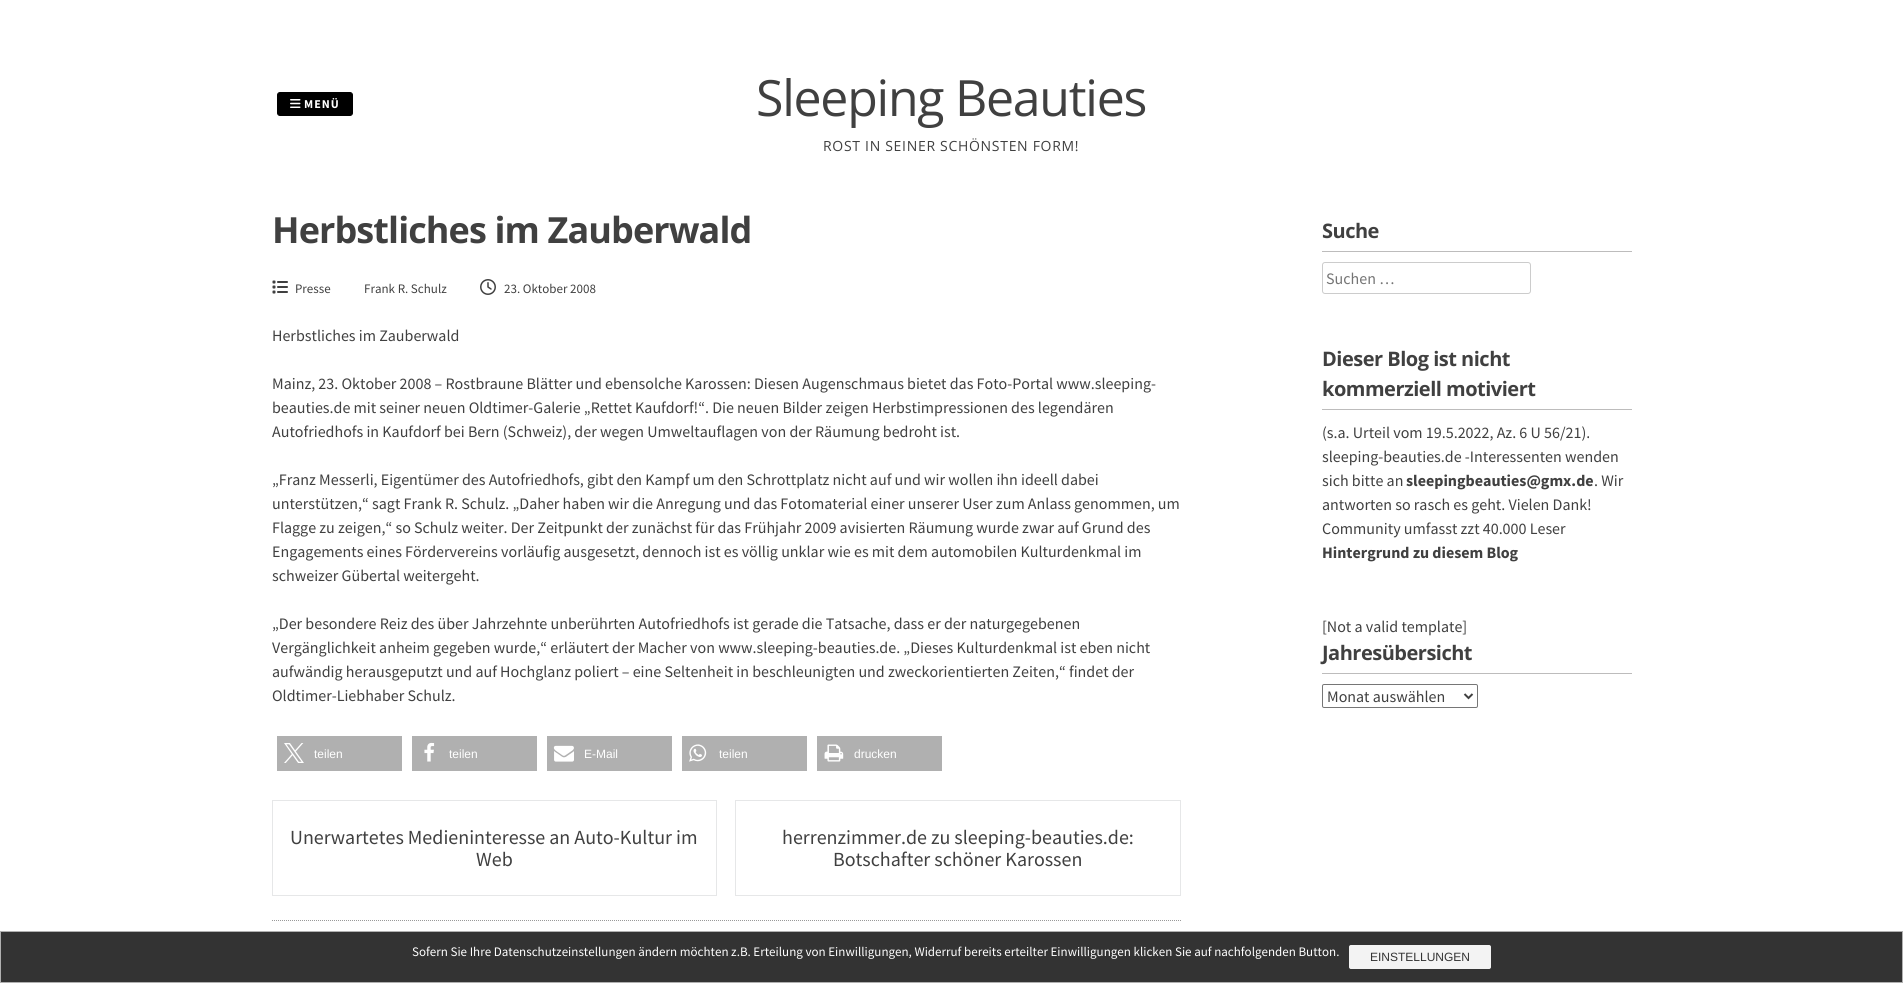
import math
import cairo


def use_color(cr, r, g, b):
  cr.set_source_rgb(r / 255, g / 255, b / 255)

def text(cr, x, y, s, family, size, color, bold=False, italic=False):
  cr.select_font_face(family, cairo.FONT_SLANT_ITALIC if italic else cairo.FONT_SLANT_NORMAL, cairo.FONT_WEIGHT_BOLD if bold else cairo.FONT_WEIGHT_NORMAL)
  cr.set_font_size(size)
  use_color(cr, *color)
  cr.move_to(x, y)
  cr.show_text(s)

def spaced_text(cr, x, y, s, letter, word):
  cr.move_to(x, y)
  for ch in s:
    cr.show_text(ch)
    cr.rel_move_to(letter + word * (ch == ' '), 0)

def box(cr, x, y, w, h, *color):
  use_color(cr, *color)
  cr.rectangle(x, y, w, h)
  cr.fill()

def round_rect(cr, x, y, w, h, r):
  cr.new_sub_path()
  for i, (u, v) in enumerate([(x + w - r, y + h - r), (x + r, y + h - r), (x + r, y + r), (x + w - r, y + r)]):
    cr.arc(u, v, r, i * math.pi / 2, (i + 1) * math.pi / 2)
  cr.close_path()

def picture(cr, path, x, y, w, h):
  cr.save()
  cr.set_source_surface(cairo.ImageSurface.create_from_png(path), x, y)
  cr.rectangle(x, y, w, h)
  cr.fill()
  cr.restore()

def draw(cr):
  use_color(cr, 255, 255, 255)
  cr.paint()
  use_color(cr, 0, 0, 0)
  round_rect(cr, 277.5, 92.5, 75, 23, 2.5)
  cr.fill_preserve()
  cr.set_line_width(1)
  cr.stroke()
  picture(cr, "img_01.png", 290, 99, 11, 9)
  picture(cr, "img_02.png", 272, 280, 16, 14)
  picture(cr, "img_03.png", 480, 279, 16, 16)
  box(cr, 277, 736, 125, 35, 176, 176, 176)
  picture(cr, "img_04.png", 284, 743, 20, 20)
  box(cr, 412, 736, 125, 35, 176, 176, 176)
  picture(cr, "img_05.png", 424, 742, 11, 20)
  box(cr, 547, 736, 125, 35, 176, 176, 176)
  picture(cr, "img_06.png", 553, 745, 21, 17)
  box(cr, 682, 736, 125, 35, 176, 176, 176)
  picture(cr, "img_07.png", 689, 744, 18, 18)
  box(cr, 817, 736, 125, 35, 176, 176, 176)
  picture(cr, "img_08.png", 824, 744, 20, 18)
  cr.rectangle(272.5, 800.5, 444, 95)
  use_color(cr, 230, 231, 232)
  cr.stroke()
  cr.rectangle(735.5, 800.5, 445, 95)
  cr.stroke()
  cr.new_path()
  cr.move_to(272, 920.5)
  cr.line_to(1181, 920.5)
  use_color(cr, 153, 153, 153)
  cr.set_dash([1, 1])
  cr.stroke()
  box(cr, 1322, 251, 310, 1, 189, 188, 188)
  round_rect(cr, 1322.5, 262.5, 208, 31, 2.5)
  use_color(cr, 204, 204, 204)
  cr.set_dash([])
  cr.stroke()
  box(cr, 1322, 409, 310, 1, 189, 188, 188)
  box(cr, 1322, 673, 310, 1, 189, 188, 188)
  round_rect(cr, 1322.5, 684.5, 155, 23, 1.5)
  use_color(cr, 118, 118, 118)
  cr.stroke()
  cr.new_path()
  cr.move_to(1464.5, 694)
  cr.line_to(1468.5, 698)
  cr.line_to(1472.5, 694)
  use_color(cr, 64, 64, 64)
  cr.set_line_width(2)
  cr.stroke()
  use_color(cr, 51, 51, 51)
  cr.rectangle(0.5, 931.5, 1902, 51)
  cr.fill_preserve()
  use_color(cr, 176, 176, 176)
  cr.set_line_width(1)
  cr.stroke()
  use_color(cr, 243, 243, 243)
  round_rect(cr, 1349.5, 945.5, 141, 23, 1.5)
  cr.fill_preserve()
  cr.stroke()
  cr.select_font_face("Source Sans Pro", cairo.FONT_SLANT_NORMAL, cairo.FONT_WEIGHT_BOLD)
  cr.set_font_size(12)
  use_color(cr, 255, 255, 255)
  spaced_text(cr, 304, 108, "MENÜ", 1, 0)
  cr.select_font_face("Open Sans")
  cr.set_font_size(50)
  use_color(cr, 64, 64, 64)
  spaced_text(cr, 756, 116, "Sleeping Beauties", -1.25, 0)
  cr.set_font_size(14)
  spaced_text(cr, 823, 151, "ROST IN SEINER SCHÖNSTEN FORM!", 0.7, 0)
  cr.select_font_face("Open Sans", cairo.FONT_SLANT_NORMAL, cairo.FONT_WEIGHT_BOLD)
  cr.set_font_size(36)
  spaced_text(cr, 272, 243, "Herbstliches im Zauberwald", -0.9, 0)
  text(cr, 295, 293, "Presse", "Source Sans Pro", 13, (64, 64, 64))
  text(cr, 364, 293, "Frank R. Schulz", "Source Sans Pro", 13, (64, 64, 64))
  text(cr, 504, 293, "23. Oktober 2008", "Source Sans Pro", 13, (64, 64, 64))
  text(cr, 272, 341, "Herbstliches im Zauberwald", "Source Sans Pro", 16, (64, 64, 64))
  text(cr, 272, 389, "Mainz, 23. Oktober 2008 – Rostbraune Blätter und ebensolche Karossen: Diesen Augenschmaus bietet das Foto-Portal www.sleeping-", "Source Sans Pro", 16, (64, 64, 64))
  text(cr, 272, 413, "beauties.de mit seiner neuen Oldtimer-Galerie „Rettet Kaufdorf!“. Die neuen Bilder zeigen Herbstimpressionen des legendären", "Source Sans Pro", 16, (64, 64, 64))
  text(cr, 272, 437, "Autofriedhofs in Kaufdorf bei Bern (Schweiz), der wegen Umweltauflagen von der Räumung bedroht ist.", "Source Sans Pro", 16, (64, 64, 64))
  text(cr, 272, 485, "„Franz Messerli, Eigentümer des Autofriedhofs, gibt den Kampf um den Schrottplatz nicht auf und wir wollen ihn ideell dabei", "Source Sans Pro", 16, (64, 64, 64))
  text(cr, 272, 509, "unterstützen,“ sagt Frank R. Schulz. „Daher haben wir die Anregung und das Fotomaterial einer unserer User zum Anlass genommen, um", "Source Sans Pro", 16, (64, 64, 64))
  text(cr, 272, 533, "Flagge zu zeigen,“ so Schulz weiter. Der Zeitpunkt der zunächst für das Frühjahr 2009 avisierten Räumung wurde zwar auf Grund des", "Source Sans Pro", 16, (64, 64, 64))
  text(cr, 272, 557, "Engagements eines Fördervereins vorläufig ausgesetzt, dennoch ist es völlig unklar wie es mit dem automobilen Kulturdenkmal im", "Source Sans Pro", 16, (64, 64, 64))
  text(cr, 272, 581, "schweizer Gübertal weitergeht.", "Source Sans Pro", 16, (64, 64, 64))
  text(cr, 272, 629, "„Der besondere Reiz des über Jahrzehnte unberührten Autofriedhofs ist gerade die Tatsache, dass er der naturgegebenen", "Source Sans Pro", 16, (64, 64, 64))
  text(cr, 272, 653, "Vergänglichkeit anheim gegeben wurde,“ erläutert der Macher von www.sleeping-beauties.de. „Dieses Kulturdenkmal ist eben nicht", "Source Sans Pro", 16, (64, 64, 64))
  text(cr, 272, 677, "aufwändig herausgeputzt und auf Hochglanz poliert – eine Seltenheit in beschleunigten und zweckorientierten Zeiten,“ findet der", "Source Sans Pro", 16, (64, 64, 64))
  text(cr, 272, 701, "Oldtimer-Liebhaber Schulz.", "Source Sans Pro", 16, (64, 64, 64))
  text(cr, 314, 758, "teilen", "Liberation Sans", 12, (255, 255, 255))
  text(cr, 449, 758, "teilen", "Liberation Sans", 12, (255, 255, 255))
  text(cr, 584, 758, "E-Mail", "Liberation Sans", 12, (255, 255, 255))
  text(cr, 719, 758, "teilen", "Liberation Sans", 12, (255, 255, 255))
  text(cr, 854, 758, "drucken", "Liberation Sans", 12, (255, 255, 255))
  text(cr, 290, 844, "Unerwartetes Medieninteresse an Auto-Kultur im", "Source Sans Pro", 20, (64, 64, 64))
  text(cr, 476, 866, "Web", "Source Sans Pro", 20, (64, 64, 64))
  text(cr, 782, 844, "herrenzimmer.de zu sleeping-beauties.de:", "Source Sans Pro", 20, (64, 64, 64))
  text(cr, 833, 866, "Botschafter schöner Karossen", "Source Sans Pro", 20, (64, 64, 64))
  cr.select_font_face("Open Sans", cairo.FONT_SLANT_NORMAL, cairo.FONT_WEIGHT_BOLD)
  spaced_text(cr, 1322, 238, "Suche", -0.5, 0)
  text(cr, 1326, 284, "Suchen …", "Source Sans Pro", 16, (117, 117, 117))
  cr.select_font_face("Open Sans", cairo.FONT_SLANT_NORMAL, cairo.FONT_WEIGHT_BOLD)
  cr.set_font_size(20)
  use_color(cr, 64, 64, 64)
  spaced_text(cr, 1322, 366, "Dieser Blog ist nicht", -0.5, 0)
  spaced_text(cr, 1322, 396, "kommerziell motiviert", -0.5, 0)
  text(cr, 1322, 438, "(s.a. Urteil vom 19.5.2022, Az. 6 U 56/21).", "Source Sans Pro", 16, (64, 64, 64))
  text(cr, 1322, 462, "sleeping-beauties.de -Interessenten wenden", "Source Sans Pro", 16, (64, 64, 64))
  text(cr, 1322, 486, "sich bitte an", "Source Sans Pro", 16, (64, 64, 64))
  text(cr, 1406, 486, "sleepingbeauties@gmx.de", "Source Sans Pro", 16, (64, 64, 64), bold=True)
  text(cr, 1594, 486, ". Wir", "Source Sans Pro", 16, (64, 64, 64))
  text(cr, 1322, 510, "antworten so rasch es geht. Vielen Dank!", "Source Sans Pro", 16, (64, 64, 64))
  text(cr, 1322, 534, "Community umfasst zzt 40.000 Leser", "Source Sans Pro", 16, (64, 64, 64))
  text(cr, 1322, 558, "Hintergrund zu diesem Blog", "Source Sans Pro", 16, (64, 64, 64), bold=True)
  text(cr, 1322, 632, "[Not a valid template]", "Source Sans Pro", 16, (64, 64, 64))
  cr.select_font_face("Open Sans", cairo.FONT_SLANT_NORMAL, cairo.FONT_WEIGHT_BOLD)
  cr.set_font_size(20)
  spaced_text(cr, 1322, 660, "Jahresübersicht", -0.5, 0)
  text(cr, 1327, 702, "Monat auswählen", "Source Sans Pro", 16, (64, 64, 64))
  text(cr, 412, 956, "Sofern Sie Ihre Datenschutzeinstellungen ändern möchten z.B. Erteilung von Einwilligungen, Widerruf bereits erteilter Einwilligungen klicken Sie auf nachfolgenden Button.", "Source Sans Pro", 13, (255, 255, 255))
  text(cr, 1370, 961, "EINSTELLUNGEN", "Liberation Sans", 12, (51, 51, 51))


surface = cairo.ImageSurface(cairo.FORMAT_RGB24, 1903, 983)
cr = cairo.Context(surface)
options = cairo.FontOptions()
options.set_hint_metrics(cairo.HINT_METRICS_OFF)
options.set_hint_style(cairo.HINT_STYLE_NONE)
cr.set_font_options(options)
cr.set_miter_limit(4)
draw(cr)
surface.write_to_png("out.png")
